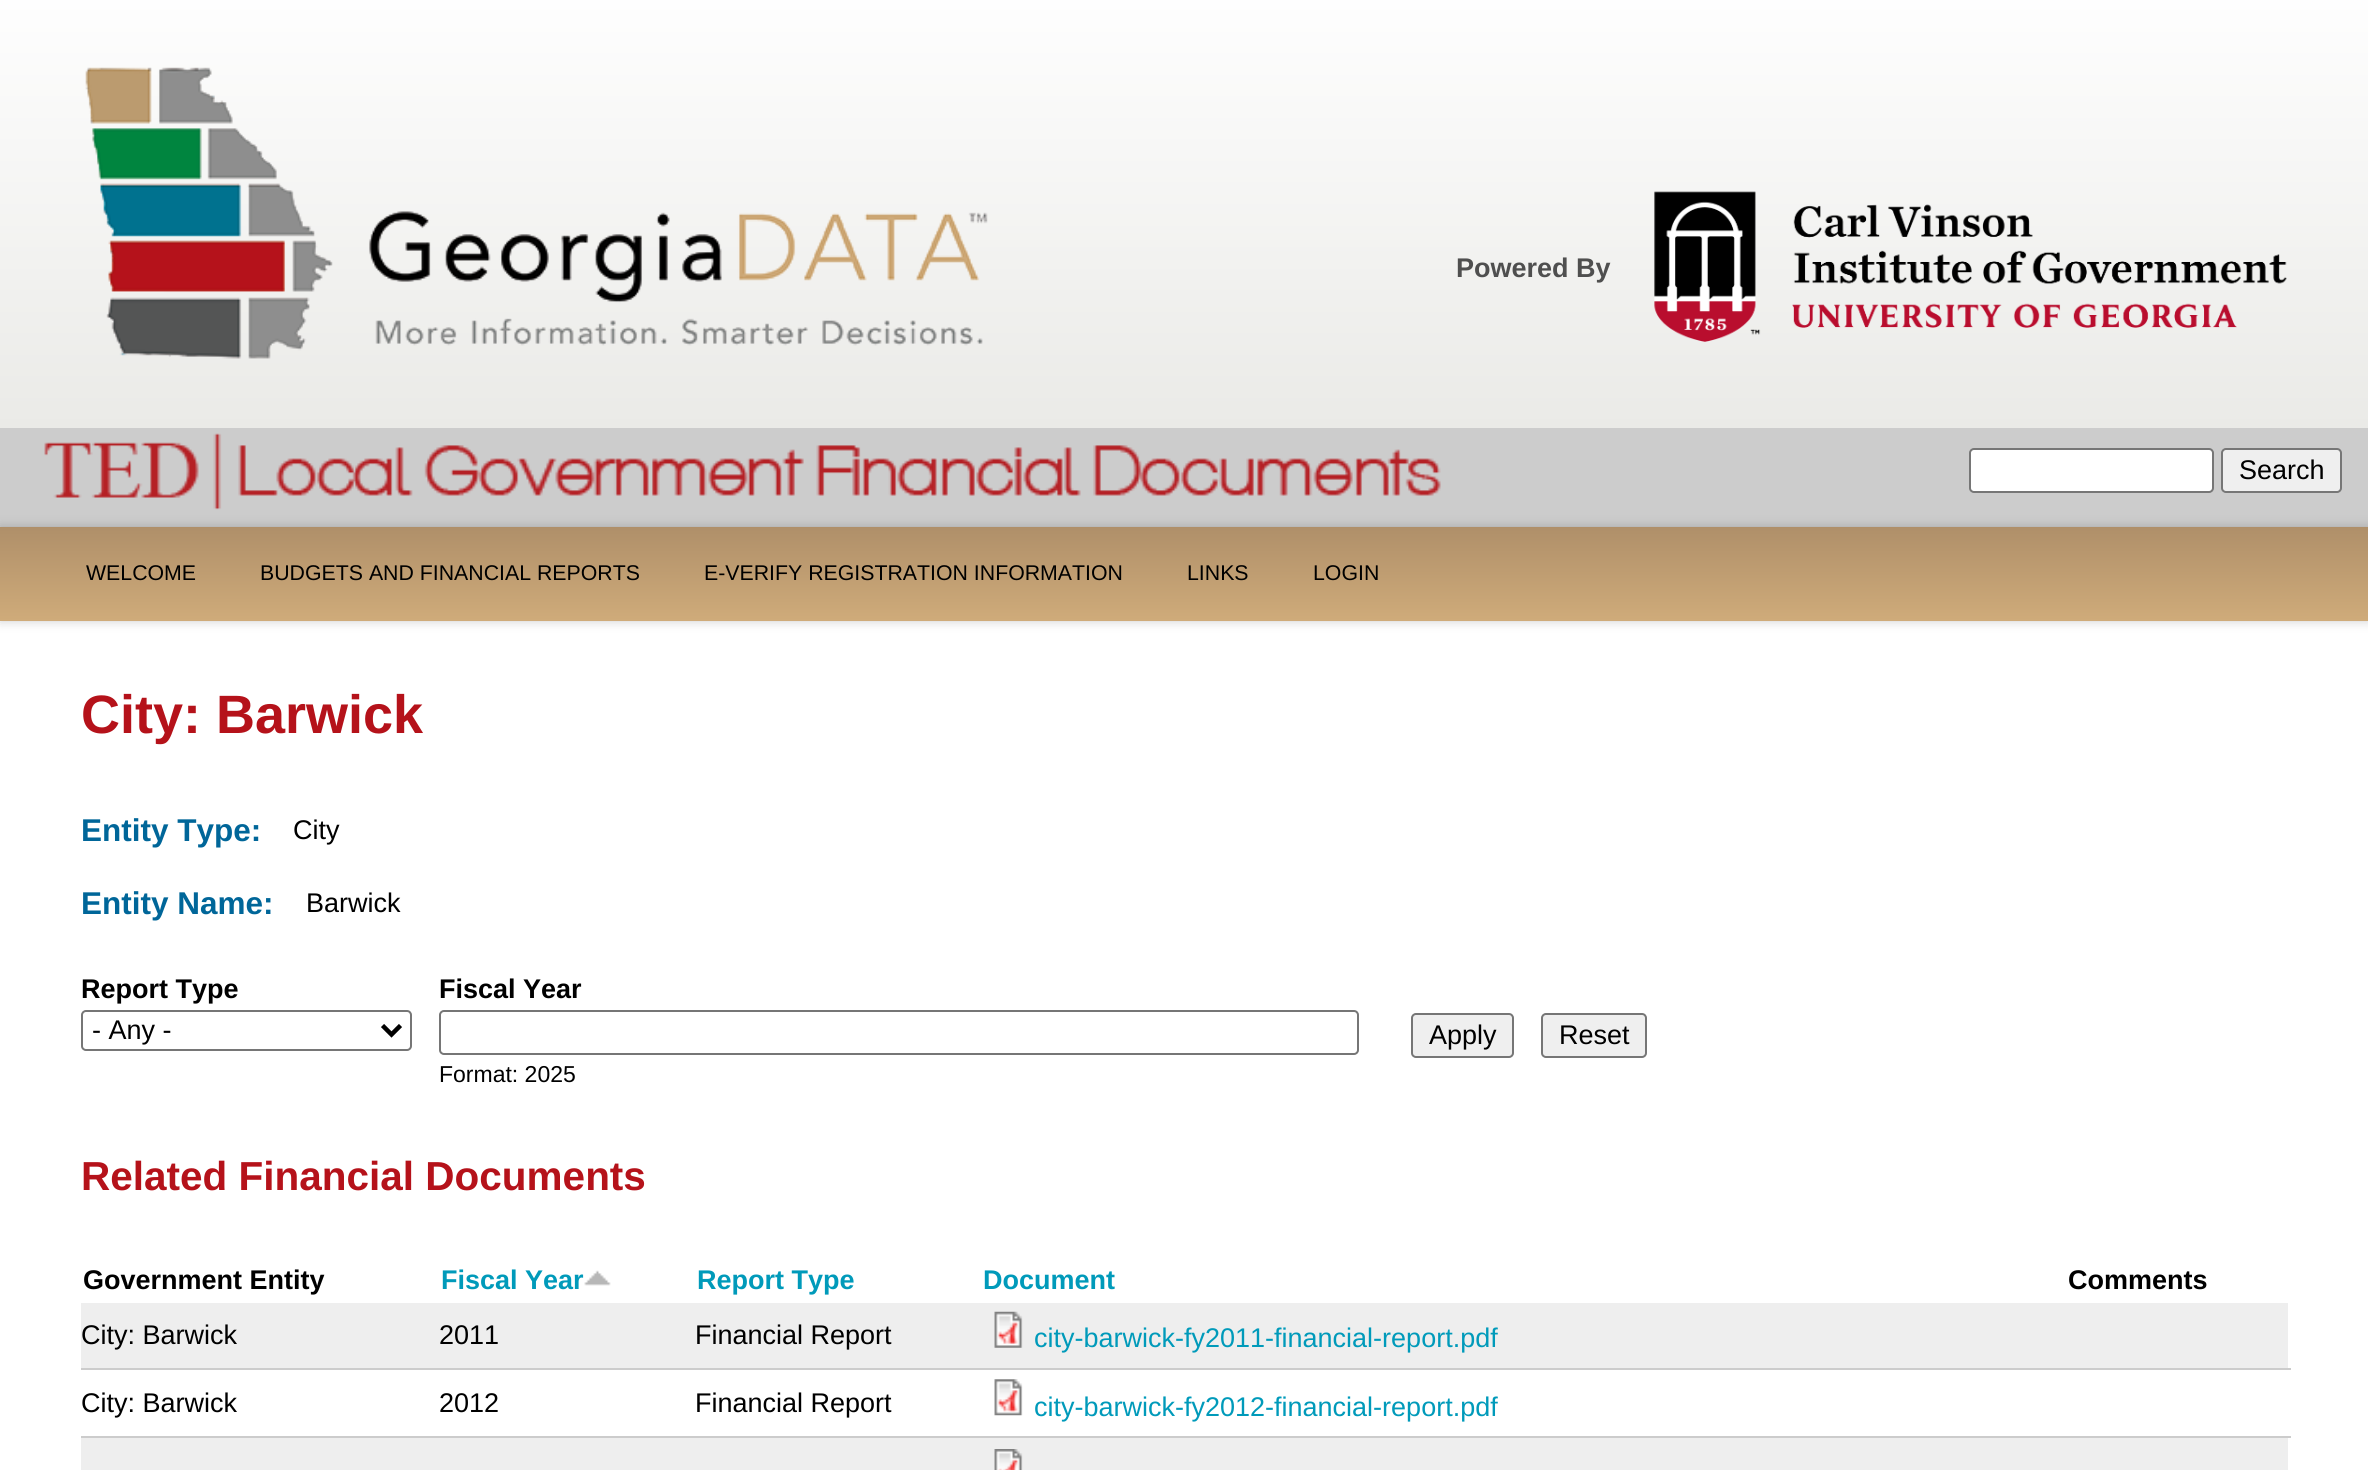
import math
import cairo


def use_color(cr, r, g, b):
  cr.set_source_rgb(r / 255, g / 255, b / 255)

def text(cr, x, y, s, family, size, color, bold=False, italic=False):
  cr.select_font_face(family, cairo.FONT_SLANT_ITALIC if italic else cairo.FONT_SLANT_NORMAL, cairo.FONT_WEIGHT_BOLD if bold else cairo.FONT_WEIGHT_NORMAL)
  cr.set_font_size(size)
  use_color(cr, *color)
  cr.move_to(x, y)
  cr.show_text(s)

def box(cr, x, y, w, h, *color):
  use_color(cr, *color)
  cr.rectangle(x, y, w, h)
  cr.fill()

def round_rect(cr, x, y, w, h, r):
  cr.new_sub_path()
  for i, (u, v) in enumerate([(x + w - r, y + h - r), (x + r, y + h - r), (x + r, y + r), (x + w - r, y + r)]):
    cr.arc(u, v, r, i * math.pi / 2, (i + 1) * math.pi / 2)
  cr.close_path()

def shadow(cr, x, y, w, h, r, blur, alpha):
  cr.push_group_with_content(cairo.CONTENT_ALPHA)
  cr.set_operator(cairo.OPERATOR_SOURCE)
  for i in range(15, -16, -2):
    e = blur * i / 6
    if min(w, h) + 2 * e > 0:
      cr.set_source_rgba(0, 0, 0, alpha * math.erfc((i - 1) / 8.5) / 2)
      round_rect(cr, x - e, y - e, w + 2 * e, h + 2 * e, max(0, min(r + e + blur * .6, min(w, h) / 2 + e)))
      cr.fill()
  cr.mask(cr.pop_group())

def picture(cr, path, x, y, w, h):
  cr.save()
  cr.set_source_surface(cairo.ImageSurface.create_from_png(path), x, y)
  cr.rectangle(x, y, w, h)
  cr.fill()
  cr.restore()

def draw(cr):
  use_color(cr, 204, 204, 204)
  cr.paint()
  gradient = cairo.LinearGradient(1185, 0, 1185, 428)
  gradient.add_color_stop_rgba(0, 0.996, 0.996, 0.996, 1)
  gradient.add_color_stop_rgba(1, 0.918, 0.918, 0.906, 1)
  cr.set_source(gradient)
  cr.rectangle(0, 0, 2368, 428)
  cr.fill()
  picture(cr, "img_01.png", 85, 67, 903, 292)
  picture(cr, "img_02.png", 1654, 191, 633, 151)
  picture(cr, "img_03.png", 44, 433, 1397, 77)
  use_color(cr, 255, 255, 255)
  round_rect(cr, 1970, 449, 243, 43, 4)
  cr.fill_preserve()
  use_color(cr, 118, 118, 118)
  cr.stroke()
  use_color(cr, 239, 239, 239)
  round_rect(cr, 2222, 449, 119, 43, 4)
  cr.fill_preserve()
  use_color(cr, 118, 118, 118)
  cr.stroke()
  box(cr, 0, 621, 2368, 849, 255, 255, 255)
  use_color(cr, 0, 0, 0)
  shadow(cr, 0, 527, 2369, 94, 0, 5.5, 0.2)
  gradient = cairo.LinearGradient(1185, 526, 1185, 621)
  gradient.add_color_stop_rgba(0, 0.686, 0.561, 0.412, 1)
  gradient.add_color_stop_rgba(1, 0.812, 0.671, 0.478, 1)
  cr.set_source(gradient)
  cr.rectangle(0, 527, 2368, 94)
  cr.fill()
  round_rect(cr, 82, 1011, 329, 39, 4)
  use_color(cr, 118, 118, 118)
  cr.stroke()
  cr.new_path()
  cr.move_to(382.5, 1025.5)
  cr.line_to(391.5, 1034.5)
  cr.line_to(400.5, 1025.5)
  use_color(cr, 0, 0, 0)
  cr.set_line_width(4.5)
  cr.stroke()
  round_rect(cr, 440, 1011, 918, 43, 4)
  use_color(cr, 118, 118, 118)
  cr.set_line_width(2)
  cr.stroke()
  use_color(cr, 239, 239, 239)
  round_rect(cr, 1412, 1014, 101, 43, 4)
  cr.fill_preserve()
  use_color(cr, 118, 118, 118)
  cr.stroke()
  use_color(cr, 239, 239, 239)
  round_rect(cr, 1542, 1014, 104, 43, 4)
  cr.fill_preserve()
  use_color(cr, 118, 118, 118)
  cr.stroke()
  picture(cr, "img_04.png", 584, 1270, 27, 16)
  box(cr, 81, 1303, 2207, 65, 238, 238, 238)
  box(cr, 81, 1368, 2210, 2, 204, 204, 204)
  picture(cr, "img_05.png", 994, 1311, 29, 37)
  box(cr, 81, 1436, 2210, 2, 204, 204, 204)
  picture(cr, "img_06.png", 994, 1379, 29, 37)
  box(cr, 81, 1438, 2207, 32, 238, 238, 238)
  picture(cr, "img_07.png", 994, 1449, 29, 21)
  text(cr, 1456, 277, "Powered By", "Liberation Sans", 27, (79, 79, 79), bold=True)
  text(cr, 2239, 479, "Search", "Liberation Sans", 27, (0, 0, 0))
  text(cr, 86, 580, "WELCOME", "Liberation Sans", 21.3, (0, 0, 0))
  text(cr, 260, 580, "BUDGETS AND FINANCIAL REPORTS", "Liberation Sans", 21.3, (0, 0, 0))
  text(cr, 704, 580, "E-VERIFY REGISTRATION INFORMATION", "Liberation Sans", 21.3, (0, 0, 0))
  text(cr, 1187, 580, "LINKS", "Liberation Sans", 21.3, (0, 0, 0))
  text(cr, 1313, 580, "LOGIN", "Liberation Sans", 21.3, (0, 0, 0))
  text(cr, 81, 733, "City: Barwick", "Liberation Sans", 54, (181, 18, 26), bold=True)
  text(cr, 81, 841, "Entity Type:", "Liberation Sans", 31.5, (0, 102, 153), bold=True)
  text(cr, 293, 839, "City", "Liberation Sans", 27, (0, 0, 0))
  text(cr, 81, 914, "Entity Name:", "Liberation Sans", 31.5, (0, 102, 153), bold=True)
  text(cr, 306, 912, "Barwick", "Liberation Sans", 27, (0, 0, 0))
  text(cr, 81, 998, "Report Type", "Liberation Sans", 27, (0, 0, 0), bold=True)
  text(cr, 92, 1039, "- Any -", "Liberation Sans", 27, (0, 0, 0))
  text(cr, 439, 998, "Fiscal Year", "Liberation Sans", 27, (0, 0, 0), bold=True)
  text(cr, 439, 1082, "Format: 2025", "Liberation Sans", 23, (0, 0, 0))
  text(cr, 1429, 1044, "Apply", "Liberation Sans", 27, (0, 0, 0))
  text(cr, 1559, 1044, "Reset", "Liberation Sans", 27, (0, 0, 0))
  text(cr, 81, 1190, "Related Financial Documents", "Liberation Sans", 40.5, (181, 18, 26), bold=True)
  text(cr, 83, 1289, "Government Entity", "Liberation Sans", 27, (0, 0, 0), bold=True)
  text(cr, 441, 1289, "Fiscal Year", "Liberation Sans", 27, (0, 154, 186), bold=True)
  text(cr, 697, 1289, "Report Type", "Liberation Sans", 27, (0, 154, 186), bold=True)
  text(cr, 983, 1289, "Document", "Liberation Sans", 27, (0, 154, 186), bold=True)
  text(cr, 2068, 1289, "Comments", "Liberation Sans", 27, (0, 0, 0), bold=True)
  text(cr, 81, 1344, "City: Barwick", "Liberation Sans", 27, (0, 0, 0))
  text(cr, 439, 1344, "2011", "Liberation Sans", 27, (0, 0, 0))
  text(cr, 695, 1344, "Financial Report", "Liberation Sans", 27, (0, 0, 0))
  text(cr, 1034, 1347, "city-barwick-fy2011-financial-report.pdf", "Liberation Sans", 27, (0, 154, 186))
  text(cr, 81, 1412, "City: Barwick", "Liberation Sans", 27, (0, 0, 0))
  text(cr, 439, 1412, "2012", "Liberation Sans", 27, (0, 0, 0))
  text(cr, 695, 1412, "Financial Report", "Liberation Sans", 27, (0, 0, 0))
  text(cr, 1034, 1416, "city-barwick-fy2012-financial-report.pdf", "Liberation Sans", 27, (0, 154, 186))


surface = cairo.ImageSurface(cairo.FORMAT_RGB24, 2368, 1470)
cr = cairo.Context(surface)
options = cairo.FontOptions()
options.set_hint_metrics(cairo.HINT_METRICS_OFF)
options.set_hint_style(cairo.HINT_STYLE_NONE)
cr.set_font_options(options)
cr.set_miter_limit(4)
draw(cr)
surface.write_to_png("out.png")
